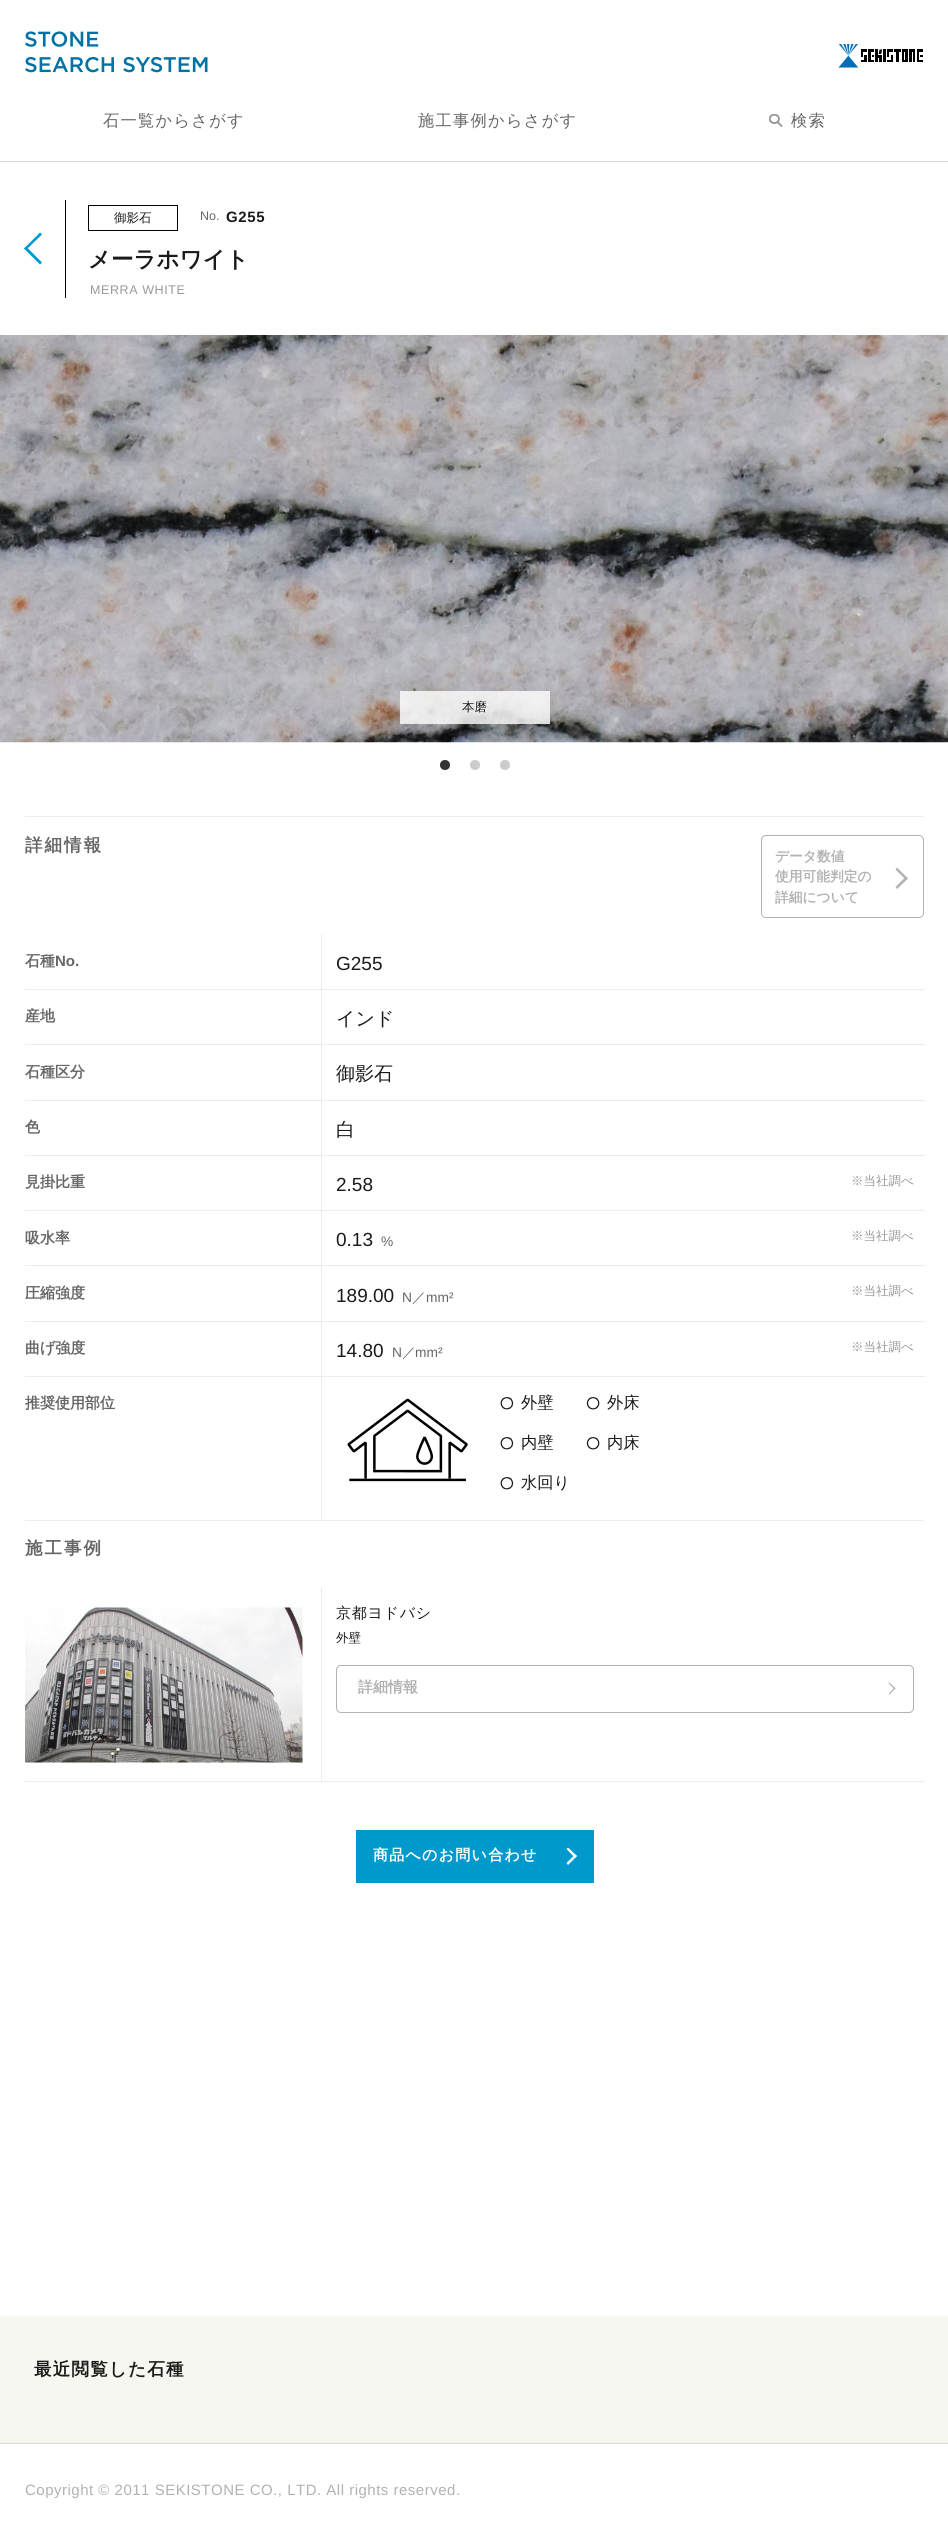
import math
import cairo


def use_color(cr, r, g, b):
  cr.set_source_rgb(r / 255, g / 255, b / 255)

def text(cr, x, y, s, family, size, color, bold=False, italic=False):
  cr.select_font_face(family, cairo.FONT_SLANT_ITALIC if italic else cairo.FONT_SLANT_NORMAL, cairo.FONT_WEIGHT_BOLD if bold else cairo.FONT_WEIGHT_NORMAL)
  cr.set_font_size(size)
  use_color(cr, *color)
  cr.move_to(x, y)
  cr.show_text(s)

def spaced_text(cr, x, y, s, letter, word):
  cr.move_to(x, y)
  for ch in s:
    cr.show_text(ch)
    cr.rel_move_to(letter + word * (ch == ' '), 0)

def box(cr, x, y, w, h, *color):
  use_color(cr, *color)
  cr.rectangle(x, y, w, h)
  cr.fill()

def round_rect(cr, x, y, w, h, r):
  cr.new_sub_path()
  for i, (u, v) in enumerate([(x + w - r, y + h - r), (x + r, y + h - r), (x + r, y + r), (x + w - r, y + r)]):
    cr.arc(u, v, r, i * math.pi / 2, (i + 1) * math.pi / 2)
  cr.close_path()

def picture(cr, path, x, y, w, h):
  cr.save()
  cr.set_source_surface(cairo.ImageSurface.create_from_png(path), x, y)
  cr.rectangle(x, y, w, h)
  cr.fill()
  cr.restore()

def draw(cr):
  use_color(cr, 255, 255, 255)
  cr.paint()
  box(cr, 0, 161, 948, 1, 217, 217, 217)
  picture(cr, "img_01.png", 25, 31, 183, 42)
  picture(cr, "img_02.png", 838, 44, 85, 24)
  picture(cr, "img_03.png", 769, 114, 14, 13)
  box(cr, 65, 200, 1, 98, 0, 0, 0)
  use_color(cr, 0, 153, 204)
  cr.new_path()
  cr.move_to(26, 246.5)
  cr.line_to(42, 262.5)
  cr.line_to(40, 264.5)
  cr.line_to(24, 248.5)
  cr.close_path()
  cr.fill()
  cr.new_path()
  cr.move_to(40, 232.5)
  cr.line_to(42, 234.5)
  cr.line_to(26, 250)
  cr.line_to(24, 248.5)
  cr.close_path()
  cr.fill()
  cr.rectangle(88.5, 205.5, 89, 25)
  use_color(cr, 0, 0, 0)
  cr.set_line_width(1)
  cr.stroke()
  picture(cr, "img_04.png", 0, 335, 948, 408)
  cr.set_source_rgba(1, 1, 1, 0.8)
  cr.rectangle(400, 691, 150, 33)
  cr.fill()
  use_color(cr, 51, 51, 51)
  cr.arc(445, 765, 5, 0, 2 * math.pi)
  cr.fill()
  use_color(cr, 204, 204, 204)
  cr.arc(475, 765, 5, 0, 2 * math.pi)
  cr.fill()
  cr.arc(505, 765, 5, 0, 2 * math.pi)
  cr.fill()
  box(cr, 25, 816, 899, 1, 236, 236, 236)
  box(cr, 25, 1520, 899, 1, 236, 236, 236)
  box(cr, 25, 989, 900, 1, 236, 236, 236)
  box(cr, 25, 1044, 900, 1, 236, 236, 236)
  box(cr, 25, 1100, 900, 1, 236, 236, 236)
  box(cr, 25, 1155, 900, 1, 236, 236, 236)
  box(cr, 25, 1210, 900, 1, 236, 236, 236)
  box(cr, 25, 1265, 900, 1, 236, 236, 236)
  box(cr, 25, 1321, 900, 1, 236, 236, 236)
  box(cr, 25, 1376, 900, 1, 236, 236, 236)
  box(cr, 321, 934, 1, 586, 236, 236, 236)
  picture(cr, "img_05.png", 347, 1398, 121, 84)
  picture(cr, "img_06.png", 500, 1397, 14, 13)
  picture(cr, "img_07.png", 586, 1397, 14, 13)
  picture(cr, "img_06.png", 500, 1437, 14, 13)
  picture(cr, "img_07.png", 586, 1437, 14, 13)
  picture(cr, "img_06.png", 500, 1477, 14, 13)
  round_rect(cr, 761.5, 835.5, 162, 82, 4.5)
  use_color(cr, 178, 178, 178)
  cr.stroke()
  cr.new_path()
  cr.move_to(895.5, 869.5)
  cr.line_to(897, 867.5)
  cr.line_to(908, 878.5)
  cr.line_to(906, 880)
  cr.close_path()
  cr.fill()
  cr.new_path()
  cr.move_to(895.5, 887)
  cr.line_to(906, 876.5)
  cr.line_to(908, 878.5)
  cr.line_to(897, 889)
  cr.close_path()
  cr.fill()
  box(cr, 25, 1781, 899, 1, 236, 236, 236)
  box(cr, 321, 1588, 1, 193, 236, 236, 236)
  picture(cr, "img_08.png", 25, 1607, 278, 156)
  round_rect(cr, 336.5, 1665.5, 577, 47, 4.5)
  use_color(cr, 178, 178, 178)
  cr.stroke()
  cr.new_path()
  cr.move_to(888.5, 1683)
  cr.line_to(889.5, 1682.5)
  cr.line_to(895.5, 1688.5)
  cr.line_to(894.5, 1689.5)
  cr.close_path()
  cr.fill()
  cr.new_path()
  cr.move_to(888.5, 1694)
  cr.line_to(894.5, 1687.5)
  cr.line_to(895.5, 1688.5)
  cr.line_to(889.5, 1694.5)
  cr.close_path()
  cr.fill()
  box(cr, 356, 1830, 238, 53, 0, 153, 204)
  use_color(cr, 255, 255, 255)
  cr.new_path()
  cr.move_to(566.5, 1849)
  cr.line_to(568, 1847.5)
  cr.line_to(577, 1856)
  cr.line_to(575, 1858)
  cr.close_path()
  cr.fill()
  cr.new_path()
  cr.move_to(566.5, 1863)
  cr.line_to(575, 1854.5)
  cr.line_to(577, 1856)
  cr.line_to(568, 1865)
  cr.close_path()
  cr.fill()
  box(cr, 0, 2316, 948, 127, 247, 247, 242)
  box(cr, 0, 2443, 948, 1, 217, 217, 217)
  cr.select_font_face("WenQuanYi Zen Hei Medium")
  cr.set_font_size(16.25)
  use_color(cr, 102, 102, 102)
  spaced_text(cr, 103, 126, "石一覧からさがす", 1.25, 0)
  spaced_text(cr, 418, 126, "施工事例からさがす", 1.25, 0)
  spaced_text(cr, 791, 126, "検索", 1.25, 0)
  text(cr, 114, 222, "御影石", "WenQuanYi Zen Hei Medium", 12.5, (26, 26, 26))
  text(cr, 200, 220, "No.", "Liberation Sans", 12.5, (102, 102, 102))
  cr.select_font_face("Liberation Sans", cairo.FONT_SLANT_NORMAL, cairo.FONT_WEIGHT_BOLD)
  cr.set_font_size(15)
  use_color(cr, 26, 26, 26)
  spaced_text(cr, 226, 222, "G255", 0.6, 0)
  text(cr, 88, 267, "メーラホワイト", "WenQuanYi Zen Hei", 22.5, (26, 26, 26), bold=True)
  cr.select_font_face("Liberation Sans")
  cr.set_font_size(12.5)
  use_color(cr, 153, 153, 153)
  spaced_text(cr, 90, 294, "MERRA WHITE", 0.6, 0)
  text(cr, 462, 711, "本磨", "WenQuanYi Zen Hei Medium", 12.5, (26, 26, 26))
  cr.select_font_face("WenQuanYi Zen Hei", cairo.FONT_SLANT_NORMAL, cairo.FONT_WEIGHT_BOLD)
  cr.set_font_size(17.5)
  use_color(cr, 102, 102, 102)
  spaced_text(cr, 25, 851, "詳細情報", 2, 0)
  text(cr, 25, 966, "石種", "WenQuanYi Zen Hei", 15, (102, 102, 102), bold=True)
  text(cr, 55, 966, "No.", "Liberation Sans", 15, (102, 102, 102), bold=True)
  text(cr, 336, 970, "G255", "Liberation Sans", 19, (26, 26, 26))
  text(cr, 25, 1021, "産地", "WenQuanYi Zen Hei", 15, (102, 102, 102), bold=True)
  text(cr, 336, 1025, "インド", "WenQuanYi Zen Hei Medium", 19, (26, 26, 26))
  text(cr, 25, 1077, "石種区分", "WenQuanYi Zen Hei", 15, (102, 102, 102), bold=True)
  text(cr, 336, 1080, "御影石", "WenQuanYi Zen Hei Medium", 19, (26, 26, 26))
  text(cr, 25, 1132, "色", "WenQuanYi Zen Hei", 15, (102, 102, 102), bold=True)
  text(cr, 336, 1136, "白", "WenQuanYi Zen Hei Medium", 19, (26, 26, 26))
  text(cr, 25, 1187, "見掛比重", "WenQuanYi Zen Hei", 15, (102, 102, 102), bold=True)
  text(cr, 336, 1191, "2.58", "Liberation Sans", 19, (26, 26, 26))
  text(cr, 851, 1185, "※当社調べ", "WenQuanYi Zen Hei Medium", 12.5, (153, 153, 153))
  text(cr, 25, 1243, "吸水率", "WenQuanYi Zen Hei", 15, (102, 102, 102), bold=True)
  text(cr, 336, 1246, "0.13", "Liberation Sans", 19, (26, 26, 26))
  text(cr, 381, 1246, "%", "Liberation Sans", 13.75, (102, 102, 102))
  text(cr, 851, 1240, "※当社調べ", "WenQuanYi Zen Hei Medium", 12.5, (153, 153, 153))
  text(cr, 25, 1298, "圧縮強度", "WenQuanYi Zen Hei", 15, (102, 102, 102), bold=True)
  text(cr, 336, 1302, "189.00", "Liberation Sans", 19, (26, 26, 26))
  text(cr, 402, 1302, "N", "Liberation Sans", 13.75, (102, 102, 102))
  text(cr, 412, 1302, "／", "WenQuanYi Zen Hei Medium", 13.75, (102, 102, 102))
  text(cr, 426, 1302, "mm²", "Liberation Sans", 13.75, (102, 102, 102))
  text(cr, 851, 1295, "※当社調べ", "WenQuanYi Zen Hei Medium", 12.5, (153, 153, 153))
  text(cr, 25, 1353, "曲げ強度", "WenQuanYi Zen Hei", 15, (102, 102, 102), bold=True)
  text(cr, 336, 1357, "14.80", "Liberation Sans", 19, (26, 26, 26))
  text(cr, 392, 1357, "N", "Liberation Sans", 13.75, (102, 102, 102))
  text(cr, 402, 1357, "／", "WenQuanYi Zen Hei Medium", 13.75, (102, 102, 102))
  text(cr, 415, 1357, "mm²", "Liberation Sans", 13.75, (102, 102, 102))
  text(cr, 851, 1351, "※当社調べ", "WenQuanYi Zen Hei Medium", 12.5, (153, 153, 153))
  text(cr, 25, 1408, "推奨使用部位", "WenQuanYi Zen Hei", 15, (102, 102, 102), bold=True)
  text(cr, 521, 1408, "外壁", "WenQuanYi Zen Hei Medium", 16.25, (26, 26, 26))
  text(cr, 607, 1408, "外床", "WenQuanYi Zen Hei Medium", 16.25, (26, 26, 26))
  text(cr, 521, 1448, "内壁", "WenQuanYi Zen Hei Medium", 16.25, (26, 26, 26))
  text(cr, 607, 1448, "内床", "WenQuanYi Zen Hei Medium", 16.25, (26, 26, 26))
  text(cr, 521, 1488, "水回り", "WenQuanYi Zen Hei Medium", 16.25, (26, 26, 26))
  text(cr, 775, 861, "データ数値", "WenQuanYi Zen Hei", 13.75, (178, 178, 178), bold=True)
  text(cr, 775, 881, "使用可能判定の", "WenQuanYi Zen Hei", 13.75, (178, 178, 178), bold=True)
  text(cr, 775, 902, "詳細について", "WenQuanYi Zen Hei", 13.75, (178, 178, 178), bold=True)
  cr.set_font_size(17.5)
  use_color(cr, 102, 102, 102)
  spaced_text(cr, 25, 1554, "施工事例", 2, 0)
  cr.select_font_face("WenQuanYi Zen Hei Medium")
  cr.set_font_size(15)
  use_color(cr, 26, 26, 26)
  spaced_text(cr, 336, 1618, "京都ヨドバシ", 0.75, 0)
  text(cr, 336, 1642, "外壁", "WenQuanYi Zen Hei Medium", 12.5, (26, 26, 26))
  text(cr, 358, 1692, "詳細情報", "WenQuanYi Zen Hei", 15, (178, 178, 178), bold=True)
  use_color(cr, 255, 255, 255)
  spaced_text(cr, 373, 1860, "商品へのお問い合わせ", 1.25, 0)
  cr.set_font_size(17.5)
  use_color(cr, 26, 26, 26)
  spaced_text(cr, 34, 2375, "最近閲覧した石種", 1.25, 0)
  cr.select_font_face("Liberation Sans")
  cr.set_font_size(15)
  use_color(cr, 178, 178, 178)
  spaced_text(cr, 25, 2495, "Copyright © 2011 SEKISTONE CO., LTD. All rights reserved.", 0.5, 0)


surface = cairo.ImageSurface(cairo.FORMAT_RGB24, 948, 2536)
cr = cairo.Context(surface)
options = cairo.FontOptions()
options.set_hint_metrics(cairo.HINT_METRICS_OFF)
options.set_hint_style(cairo.HINT_STYLE_NONE)
cr.set_font_options(options)
cr.set_miter_limit(4)
draw(cr)
surface.write_to_png("out.png")
